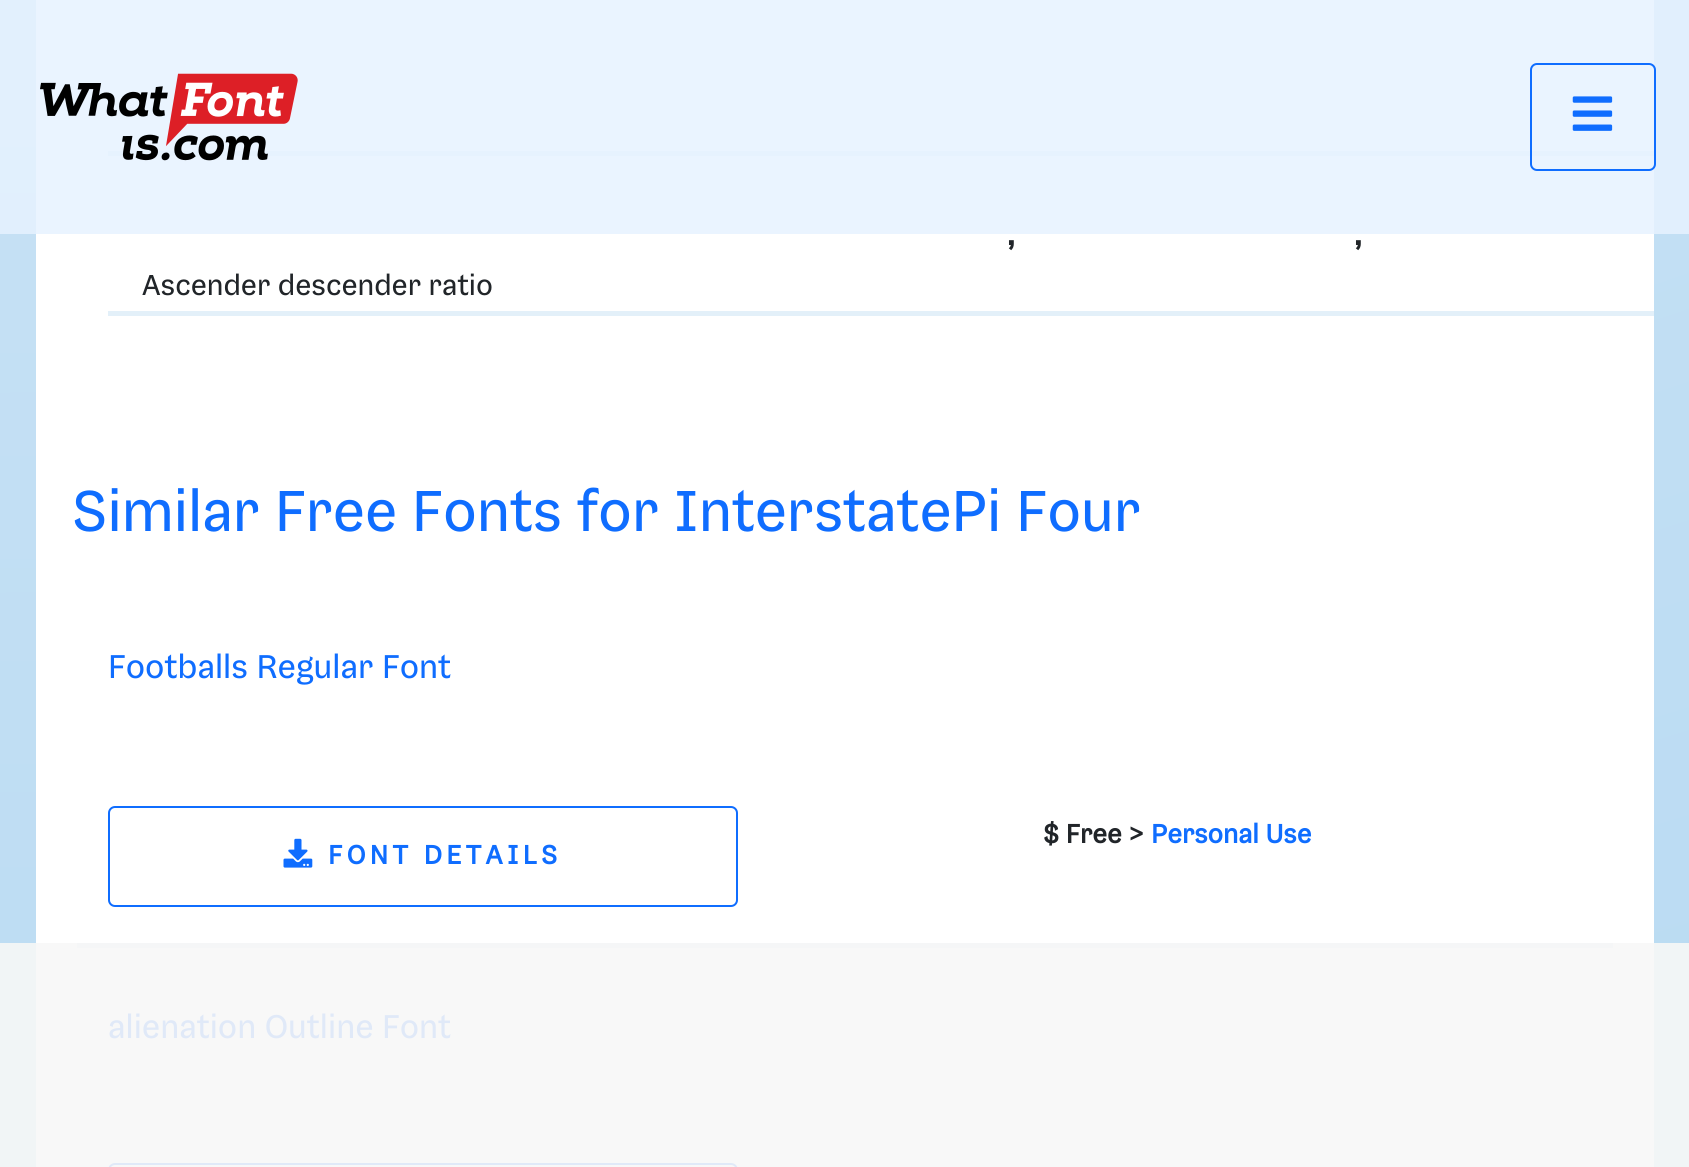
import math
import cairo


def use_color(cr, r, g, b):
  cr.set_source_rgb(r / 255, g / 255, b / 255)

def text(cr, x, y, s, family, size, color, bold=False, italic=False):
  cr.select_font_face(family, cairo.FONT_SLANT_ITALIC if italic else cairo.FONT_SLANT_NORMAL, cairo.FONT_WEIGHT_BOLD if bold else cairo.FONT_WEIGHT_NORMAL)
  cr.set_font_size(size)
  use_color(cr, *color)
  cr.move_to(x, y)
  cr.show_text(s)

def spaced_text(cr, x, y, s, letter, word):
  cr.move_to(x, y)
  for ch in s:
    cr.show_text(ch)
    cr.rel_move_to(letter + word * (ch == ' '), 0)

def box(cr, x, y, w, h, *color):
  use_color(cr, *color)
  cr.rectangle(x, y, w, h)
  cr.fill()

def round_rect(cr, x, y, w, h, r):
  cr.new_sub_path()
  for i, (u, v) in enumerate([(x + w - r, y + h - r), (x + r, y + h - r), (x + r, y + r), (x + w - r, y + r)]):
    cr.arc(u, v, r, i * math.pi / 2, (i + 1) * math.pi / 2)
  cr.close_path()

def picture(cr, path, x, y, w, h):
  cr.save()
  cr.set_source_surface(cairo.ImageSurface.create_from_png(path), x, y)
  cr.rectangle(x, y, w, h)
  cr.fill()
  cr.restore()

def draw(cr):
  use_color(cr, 255, 255, 255)
  cr.paint()
  gradient = cairo.RadialGradient(0, -4574, 0, 0, -4574, 12688)
  gradient.add_color_stop_rgba(0.1, 0.906, 0.949, 0.98, 1)
  gradient.add_color_stop_rgba(1, 0.471, 0.725, 0.906, 1)
  cr.set_source(gradient)
  cr.rectangle(0, 0, 1689, 943)
  cr.fill()
  gradient = cairo.RadialGradient(0, -4574, 0, 0, -4574, 12688)
  gradient.add_color_stop_rgba(0.1, 0.961, 0.969, 0.969, 1)
  gradient.add_color_stop_rgba(1, 0.918, 0.945, 0.961, 1)
  cr.set_source(gradient)
  cr.rectangle(0, 943, 1689, 224)
  cr.fill()
  box(cr, 36, 0, 1618, 943, 255, 255, 255)
  box(cr, 108, 151, 1546, 5, 227, 240, 249)
  cr.set_source_rgba(0.902, 0.949, 1, 0.85)
  cr.rectangle(0, 0, 1689, 234)
  cr.fill()
  picture(cr, "img_01.png", 40, 73, 258, 88)
  round_rect(cr, 1531, 64, 124, 106, 6)
  use_color(cr, 15, 109, 255)
  cr.stroke()
  picture(cr, "img_02.png", 1572, 96, 41, 35)
  box(cr, 36, 943, 1618, 224, 248, 248, 248)
  box(cr, 108, 311, 1546, 5, 227, 240, 249)
  box(cr, 77, 943, 1536, 5, 245, 246, 247)
  round_rect(cr, 109, 807, 628, 99, 6)
  use_color(cr, 15, 109, 255)
  cr.stroke()
  picture(cr, "img_03.png", 283, 838, 30, 30)
  round_rect(cr, 109, 1164, 628, 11, 6)
  use_color(cr, 224, 233, 248)
  cr.stroke()
  text(cr, 1007, 245, ",", "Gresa", 36, (33, 37, 41), bold=True)
  text(cr, 1354, 245, ",", "Gresa", 36, (33, 37, 41), bold=True)
  text(cr, 142, 295, "Ascender descender ratio", "Gresa", 31.5, (33, 37, 41))
  text(cr, 72, 531, "Similar Free Fonts for InterstatePi Four", "Gresa", 63, (15, 109, 255))
  text(cr, 108, 678, "Footballs Regular Font", "Gresa", 36, (15, 109, 255))
  text(cr, 1043, 843, "$ Free >", "Gresa", 28.75, (33, 37, 41), bold=True)
  text(cr, 1151, 843, "Personal Use", "Gresa", 28.75, (15, 109, 255), bold=True)
  spaced_text(cr, 328, 864, "FONT DETAILS", 4.5, 0)
  text(cr, 108, 1038, "alienation Outline Font", "Gresa", 36, (224, 233, 248))


surface = cairo.ImageSurface(cairo.FORMAT_RGB24, 1689, 1167)
cr = cairo.Context(surface)
options = cairo.FontOptions()
options.set_hint_metrics(cairo.HINT_METRICS_OFF)
options.set_hint_style(cairo.HINT_STYLE_NONE)
cr.set_font_options(options)
cr.set_miter_limit(4)
draw(cr)
surface.write_to_png("out.png")
